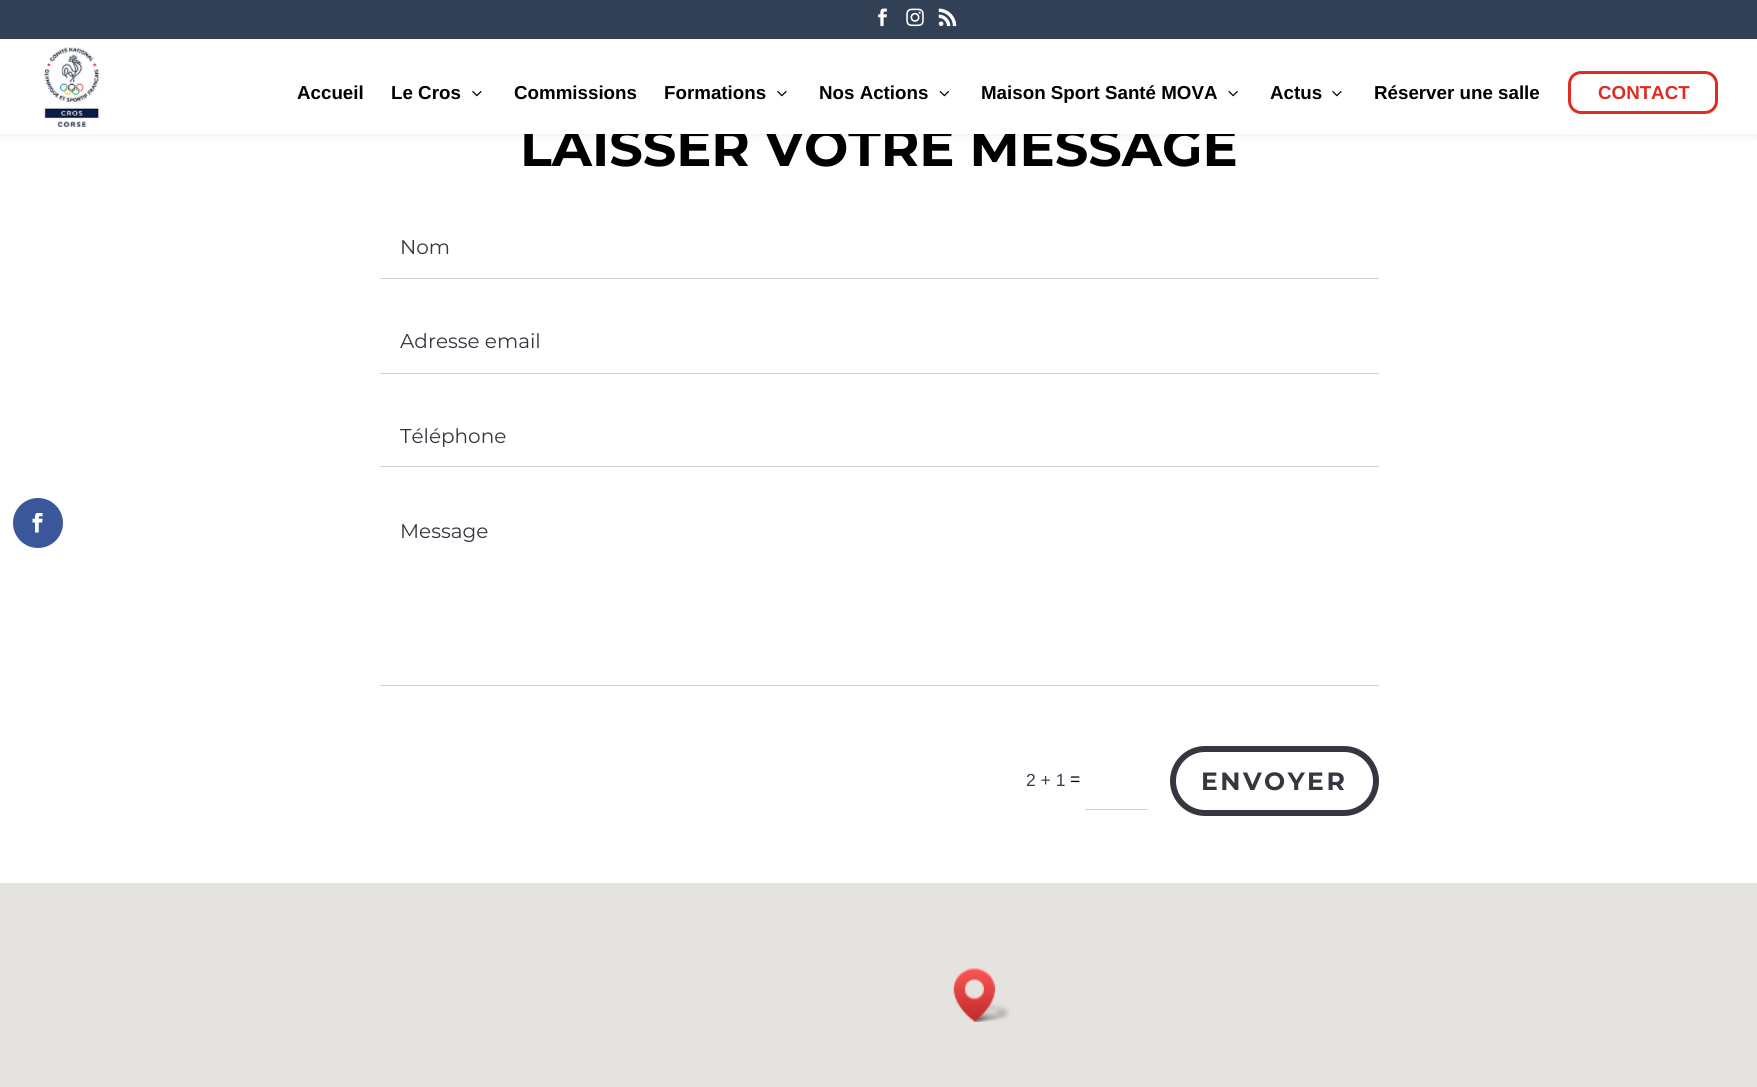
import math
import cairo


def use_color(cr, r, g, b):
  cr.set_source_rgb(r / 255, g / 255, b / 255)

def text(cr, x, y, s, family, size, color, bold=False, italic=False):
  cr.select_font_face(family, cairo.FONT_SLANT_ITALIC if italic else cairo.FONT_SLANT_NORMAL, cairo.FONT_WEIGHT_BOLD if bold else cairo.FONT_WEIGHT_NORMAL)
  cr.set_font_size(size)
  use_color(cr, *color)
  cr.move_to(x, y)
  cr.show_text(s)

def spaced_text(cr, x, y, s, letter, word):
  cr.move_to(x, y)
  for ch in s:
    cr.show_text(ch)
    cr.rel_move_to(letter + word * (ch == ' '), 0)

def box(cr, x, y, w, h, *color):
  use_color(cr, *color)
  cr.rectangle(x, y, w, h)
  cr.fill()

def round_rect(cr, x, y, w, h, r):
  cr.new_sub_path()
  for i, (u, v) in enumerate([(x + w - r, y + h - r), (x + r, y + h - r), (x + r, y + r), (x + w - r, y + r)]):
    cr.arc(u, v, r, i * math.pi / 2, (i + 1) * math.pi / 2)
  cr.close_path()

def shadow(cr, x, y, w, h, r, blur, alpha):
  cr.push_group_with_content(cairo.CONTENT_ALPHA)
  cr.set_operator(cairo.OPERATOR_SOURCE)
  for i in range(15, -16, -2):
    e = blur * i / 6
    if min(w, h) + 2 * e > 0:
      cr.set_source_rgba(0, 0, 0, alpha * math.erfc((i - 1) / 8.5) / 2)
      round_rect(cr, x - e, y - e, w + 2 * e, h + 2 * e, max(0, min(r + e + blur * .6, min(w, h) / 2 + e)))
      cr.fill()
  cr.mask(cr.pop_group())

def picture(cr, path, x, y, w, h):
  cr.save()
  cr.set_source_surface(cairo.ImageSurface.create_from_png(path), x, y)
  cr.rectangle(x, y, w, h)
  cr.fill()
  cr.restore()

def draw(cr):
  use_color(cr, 255, 255, 255)
  cr.paint()
  use_color(cr, 58, 87, 154)
  cr.arc(38, 523, 25, 0, 2 * math.pi)
  cr.fill()
  picture(cr, "img_01.png", 32, 513, 11, 20)
  use_color(cr, 0, 0, 0)
  shadow(cr, 0, 39, 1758, 95, 0, 4.5, 0.1)
  box(cr, 0, 0, 1757, 39, 50, 64, 86)
  picture(cr, "img_02.png", 878, 8, 9, 19)
  picture(cr, "img_03.png", 906, 8, 18, 19)
  picture(cr, "img_04.png", 938, 8, 19, 19)
  box(cr, 380, 278, 999, 1, 209, 209, 209)
  box(cr, 380, 373, 999, 1, 209, 209, 209)
  box(cr, 380, 466, 999, 1, 209, 209, 209)
  box(cr, 380, 685, 999, 1, 209, 209, 209)
  box(cr, 1085, 809, 63, 1, 209, 209, 209)
  round_rect(cr, 1173, 749, 203, 64, 32)
  use_color(cr, 53, 55, 64)
  cr.set_line_width(6)
  cr.stroke()
  box(cr, 0, 883, 1757, 204, 229, 227, 223)
  picture(cr, "img_09.png", 953, 968, 57, 54)
  text(cr, 520, 166, "LAISSER VOTRE MESSAGE", "Montserrat", 52.5, (0, 0, 0), bold=True)
  box(cr, 0, 39, 1757, 95, 255, 255, 255)
  round_rect(cr, 1569.5, 72.5, 147, 40, 11.5)
  use_color(cr, 224, 43, 32)
  cr.set_line_width(3)
  cr.stroke()
  text(cr, 1598, 99, "CONTACT", "Liberation Sans", 18.75, (224, 43, 32), bold=True)
  text(cr, 1374, 99, "Réserver une salle", "Liberation Sans", 18.75, (0, 0, 0), bold=True)
  picture(cr, "img_06.png", 1332, 91, 10, 6)
  text(cr, 1270, 99, "Actus", "Liberation Sans", 18.75, (0, 0, 0), bold=True)
  picture(cr, "img_08.png", 1228, 91, 10, 6)
  text(cr, 981, 99, "Maison Sport Santé MOVA", "Liberation Sans", 18.75, (0, 0, 0), bold=True)
  picture(cr, "img_07.png", 939, 91, 10, 6)
  text(cr, 819, 99, "Nos Actions", "Liberation Sans", 18.75, (0, 0, 0), bold=True)
  picture(cr, "img_06.png", 777, 91, 10, 6)
  text(cr, 664, 99, "Formations", "Liberation Sans", 18.75, (0, 0, 0), bold=True)
  text(cr, 514, 99, "Commissions", "Liberation Sans", 18.75, (0, 0, 0), bold=True)
  picture(cr, "img_06.png", 472, 91, 10, 6)
  text(cr, 391, 99, "Le Cros", "Liberation Sans", 18.75, (0, 0, 0), bold=True)
  text(cr, 297, 99, "Accueil", "Liberation Sans", 18.75, (0, 0, 0), bold=True)
  picture(cr, "img_05.png", 43, 47, 58, 80)
  text(cr, 400, 254, "Nom", "Montserrat", 20, (53, 55, 64))
  text(cr, 400, 348, "Adresse email", "Montserrat", 20, (53, 55, 64))
  text(cr, 400, 443, "Téléphone", "Montserrat", 20, (53, 55, 64))
  text(cr, 400, 538, "Message", "Montserrat", 20, (53, 55, 64))
  text(cr, 1026, 786, "2 + 1", "Liberation Sans", 17.5, (50, 64, 86))
  text(cr, 1070, 785, "=", "Liberation Sans", 17.5, (0, 0, 0))
  cr.select_font_face("Montserrat", cairo.FONT_SLANT_NORMAL, cairo.FONT_WEIGHT_BOLD)
  cr.set_font_size(25)
  use_color(cr, 53, 55, 64)
  spaced_text(cr, 1201, 790, "ENVOYER", 2.5, 0)


surface = cairo.ImageSurface(cairo.FORMAT_RGB24, 1757, 1087)
cr = cairo.Context(surface)
options = cairo.FontOptions()
options.set_hint_metrics(cairo.HINT_METRICS_OFF)
options.set_hint_style(cairo.HINT_STYLE_NONE)
cr.set_font_options(options)
cr.set_miter_limit(4)
draw(cr)
surface.write_to_png("out.png")
